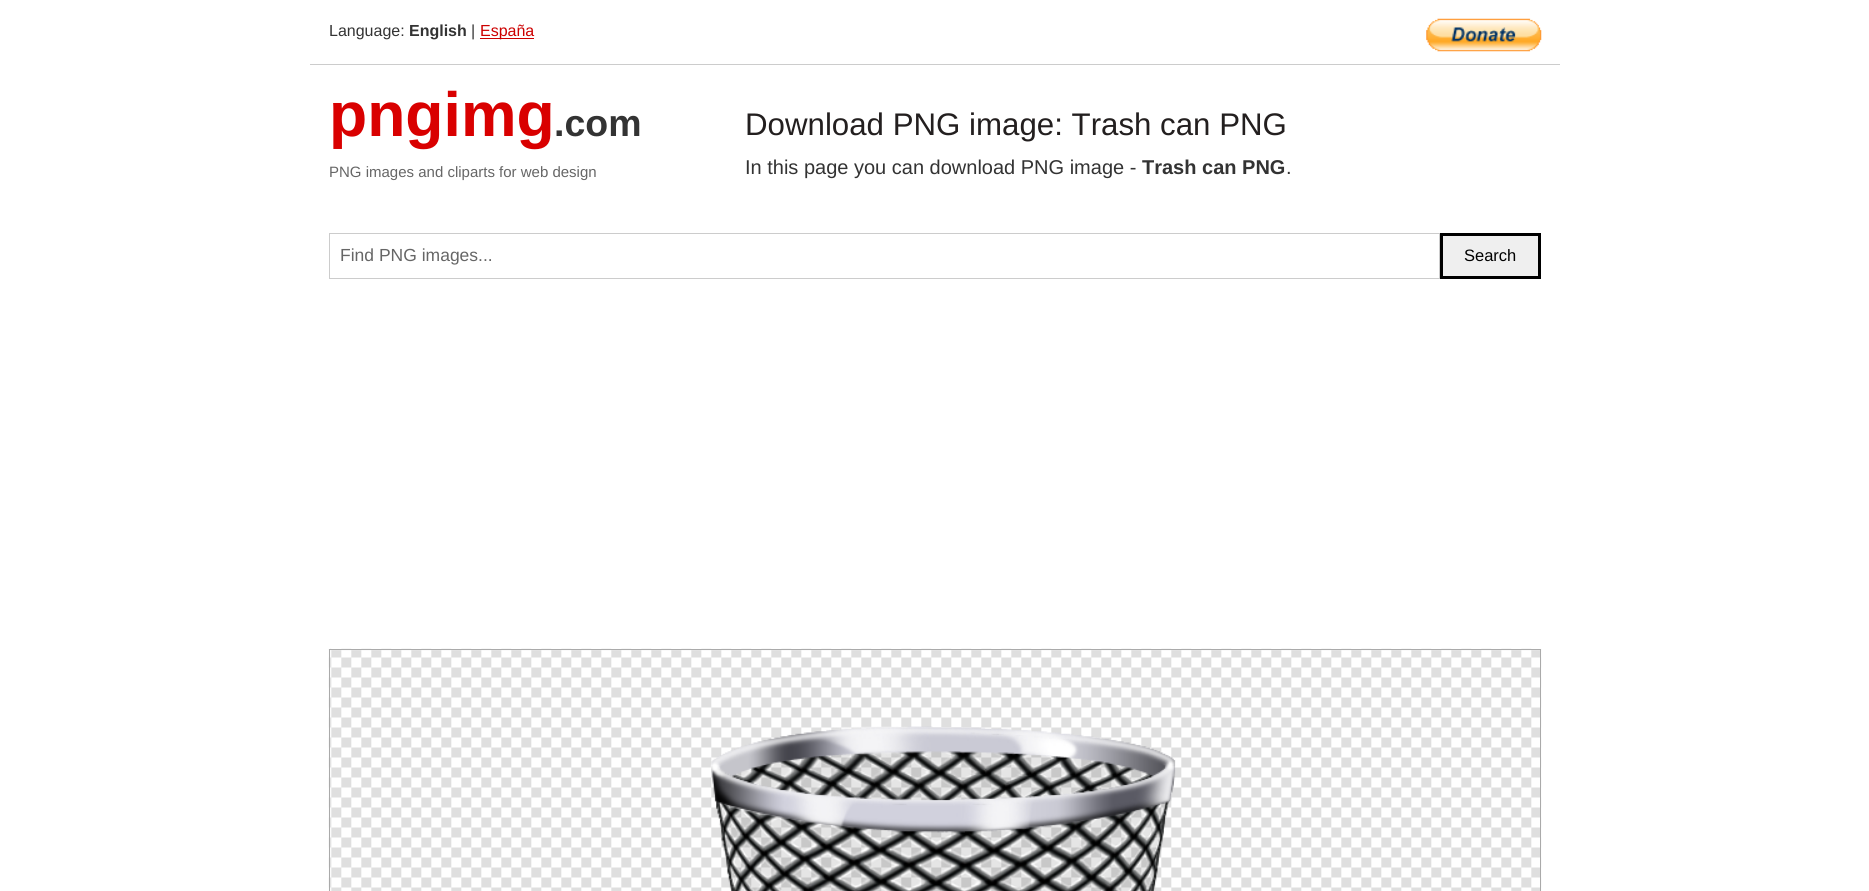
import math
import cairo


def use_color(cr, r, g, b):
  cr.set_source_rgb(r / 255, g / 255, b / 255)

def text(cr, x, y, s, family, size, color, bold=False, italic=False):
  cr.select_font_face(family, cairo.FONT_SLANT_ITALIC if italic else cairo.FONT_SLANT_NORMAL, cairo.FONT_WEIGHT_BOLD if bold else cairo.FONT_WEIGHT_NORMAL)
  cr.set_font_size(size)
  use_color(cr, *color)
  cr.move_to(x, y)
  cr.show_text(s)

def box(cr, x, y, w, h, *color):
  use_color(cr, *color)
  cr.rectangle(x, y, w, h)
  cr.fill()

def picture(cr, path, x, y, w, h):
  cr.save()
  cr.set_source_surface(cairo.ImageSurface.create_from_png(path), x, y)
  cr.rectangle(x, y, w, h)
  cr.fill()
  cr.restore()

def draw(cr):
  use_color(cr, 255, 255, 255)
  cr.paint()
  box(cr, 310, 64, 1250, 1, 204, 204, 204)
  box(cr, 480, 38, 54, 1, 204, 0, 0)
  picture(cr, "img_01.png", 1426, 18, 116, 34)
  cr.rectangle(329.5, 233.5, 1110, 45)
  use_color(cr, 204, 204, 204)
  cr.set_line_width(1)
  cr.stroke()
  use_color(cr, 239, 239, 239)
  cr.rectangle(1441.5, 234.5, 98, 43)
  cr.fill_preserve()
  use_color(cr, 0, 0, 0)
  cr.set_line_width(3)
  cr.stroke()
  picture(cr, "img_02.png", 328, 648, 1214, 243)
  cr.rectangle(329.5, 649.5, 1211, 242)
  use_color(cr, 170, 170, 170)
  cr.set_line_width(1)
  cr.stroke()
  picture(cr, "img_03.png", 710, 726, 466, 165)
  text(cr, 329, 36, "Language:", "Liberation Sans", 16, (51, 51, 51))
  text(cr, 409, 36, "English", "Liberation Sans", 16, (51, 51, 51), bold=True)
  text(cr, 471, 36, "|", "Liberation Sans", 16, (51, 51, 51))
  text(cr, 480, 36, "España", "Liberation Sans", 16, (204, 0, 0))
  text(cr, 329, 136, "pngimg", "Liberation Sans", 62.5, (217, 0, 0), bold=True)
  text(cr, 554, 136, ".com", "Liberation Sans", 37.5, (51, 51, 51), bold=True)
  text(cr, 329, 177, "PNG images and cliparts for web design", "Liberation Sans", 15, (102, 102, 102))
  text(cr, 745, 135, "Download PNG image: Trash can PNG", "Liberation Sans", 31.25, (35, 31, 31))
  text(cr, 745, 174, "In this page you can download PNG image -", "Liberation Sans", 20, (51, 51, 51))
  text(cr, 1142, 174, "Trash can PNG", "Liberation Sans", 20, (51, 51, 51), bold=True)
  text(cr, 1286, 174, ".", "Liberation Sans", 20, (51, 51, 51))
  text(cr, 340, 261, "Find PNG images...", "Liberation Sans", 17.5, (102, 102, 102))
  text(cr, 1464, 261, "Search", "Liberation Sans", 16.5, (0, 0, 0))


surface = cairo.ImageSurface(cairo.FORMAT_RGB24, 1869, 891)
cr = cairo.Context(surface)
options = cairo.FontOptions()
options.set_hint_metrics(cairo.HINT_METRICS_OFF)
options.set_hint_style(cairo.HINT_STYLE_NONE)
cr.set_font_options(options)
cr.set_miter_limit(4)
draw(cr)
surface.write_to_png("out.png")
